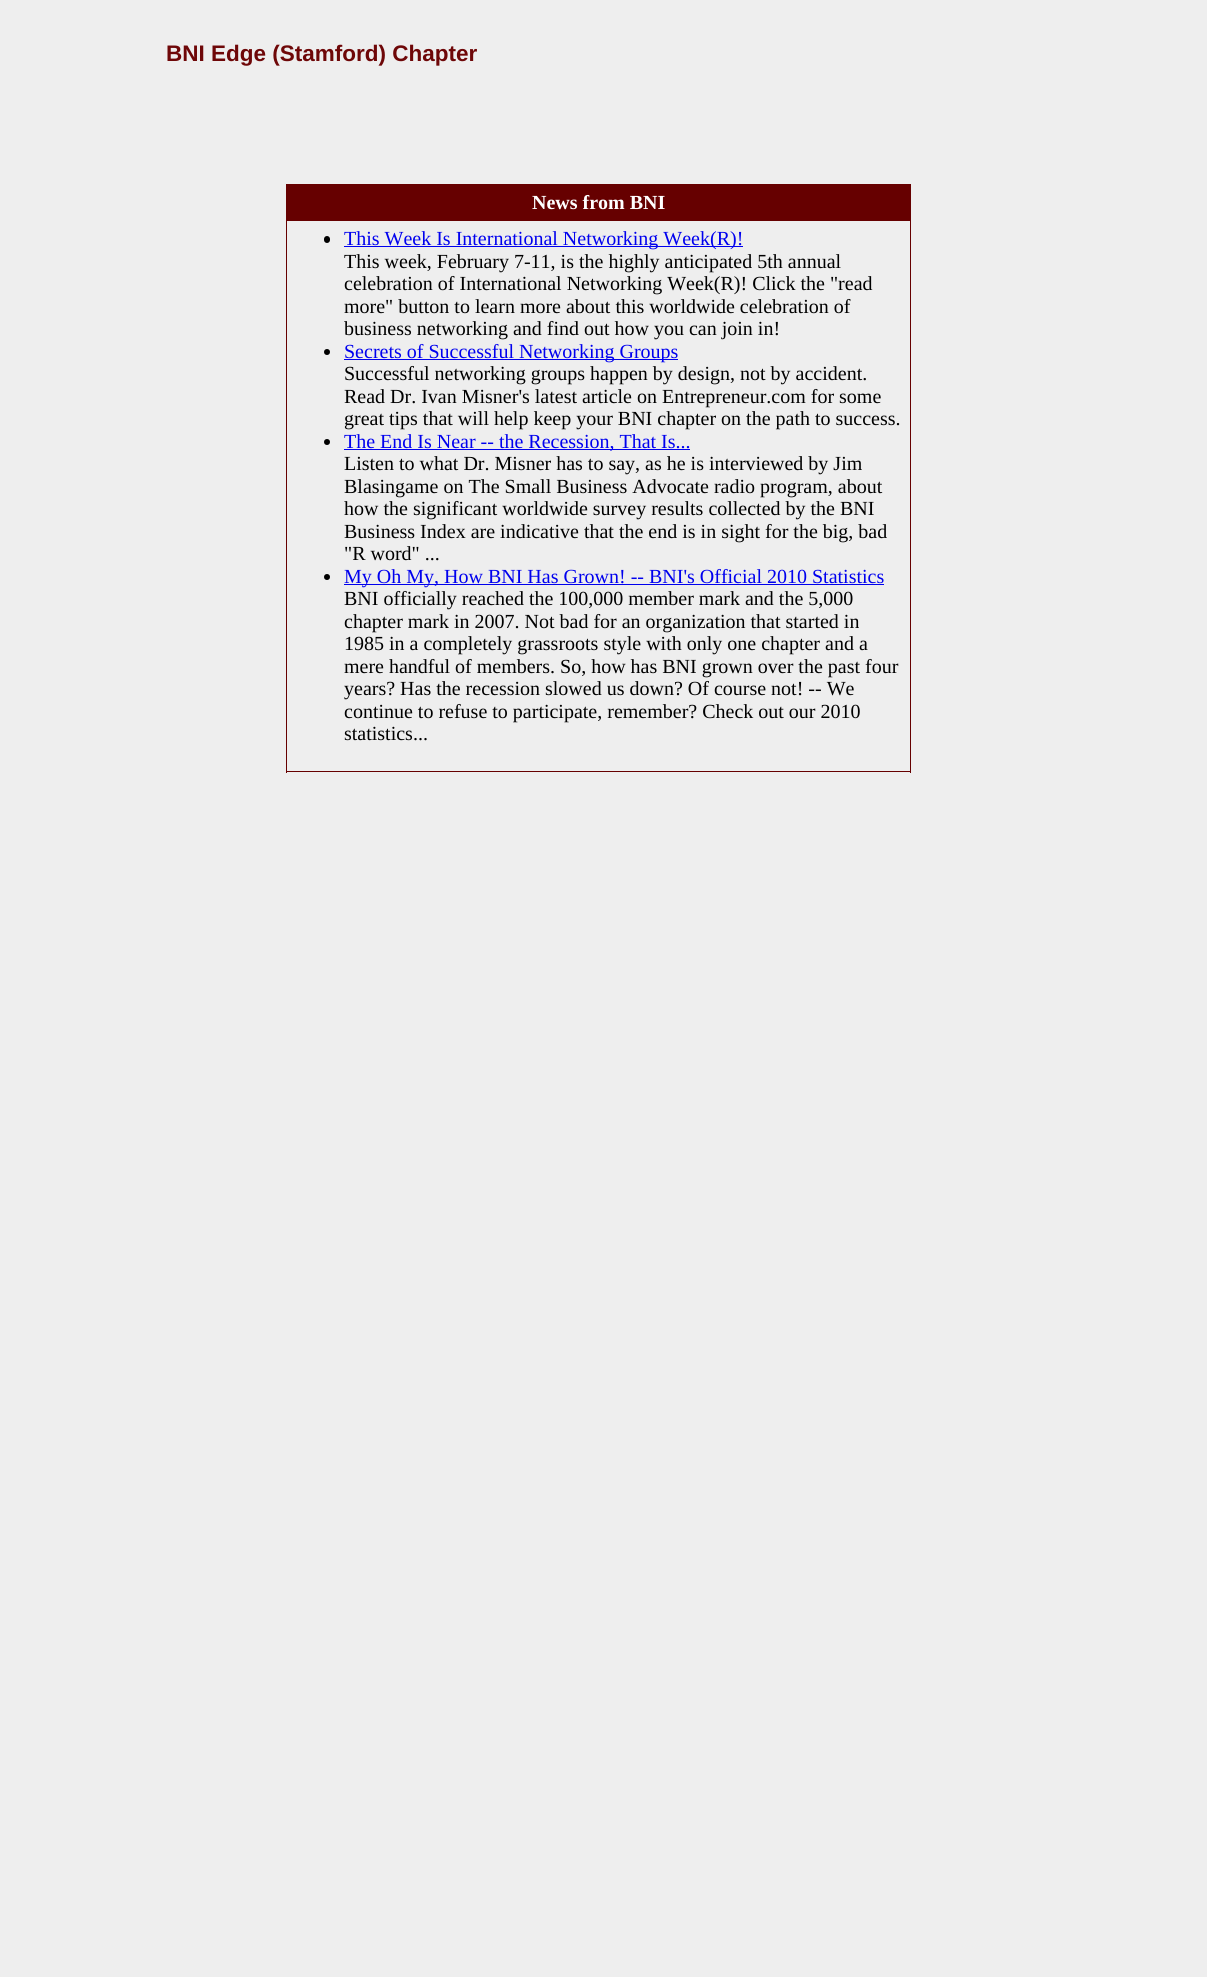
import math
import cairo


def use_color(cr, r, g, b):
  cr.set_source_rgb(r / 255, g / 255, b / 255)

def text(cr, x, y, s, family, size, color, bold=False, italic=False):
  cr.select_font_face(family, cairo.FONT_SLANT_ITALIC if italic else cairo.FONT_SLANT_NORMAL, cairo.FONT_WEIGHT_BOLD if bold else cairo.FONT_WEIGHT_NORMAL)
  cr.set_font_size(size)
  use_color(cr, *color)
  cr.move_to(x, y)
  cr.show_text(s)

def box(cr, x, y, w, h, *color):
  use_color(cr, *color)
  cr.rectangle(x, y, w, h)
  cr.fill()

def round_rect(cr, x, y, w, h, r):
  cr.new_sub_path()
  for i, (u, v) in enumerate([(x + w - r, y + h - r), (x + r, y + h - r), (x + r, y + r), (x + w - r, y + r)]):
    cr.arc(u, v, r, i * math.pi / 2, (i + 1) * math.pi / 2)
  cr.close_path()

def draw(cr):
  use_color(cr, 238, 238, 238)
  cr.paint()
  box(cr, 286, 184, 625, 1, 102, 0, 0)
  box(cr, 910, 184, 1, 589, 102, 0, 0)
  box(cr, 286, 771, 625, 1, 102, 0, 0)
  box(cr, 286, 184, 1, 589, 102, 0, 0)
  box(cr, 287, 185, 623, 36, 102, 0, 0)
  use_color(cr, 0, 0, 0)
  round_rect(cr, 324, 236, 6, 7, 3)
  cr.fill()
  box(cr, 344, 246, 399, 1, 0, 0, 238)
  use_color(cr, 0, 0, 0)
  cr.arc(327, 352, 3, 0, 2 * math.pi)
  cr.fill()
  box(cr, 344, 359, 334, 1, 0, 0, 238)
  use_color(cr, 0, 0, 0)
  cr.arc(327, 442, 3, 0, 2 * math.pi)
  cr.fill()
  box(cr, 344, 449, 346, 1, 0, 0, 238)
  use_color(cr, 0, 0, 0)
  cr.arc(327, 577, 3, 0, 2 * math.pi)
  cr.fill()
  box(cr, 344, 584, 540, 1, 0, 0, 238)
  text(cr, 166, 61, "BNI Edge (Stamford) Chapter", "Liberation Sans", 22.5, (110, 7, 8), bold=True)
  text(cr, 532, 209, "News from BNI", "Liberation Serif", 20, (255, 255, 255), bold=True)
  text(cr, 344, 245, "This Week Is International Networking Week(R)!", "Liberation Serif", 20, (0, 0, 238))
  text(cr, 344, 268, "This week, February 7-11, is the highly anticipated 5th annual", "Liberation Serif", 20, (0, 0, 0))
  text(cr, 344, 290, "celebration of International Networking Week(R)! Click the \"read", "Liberation Serif", 20, (0, 0, 0))
  text(cr, 344, 313, "more\" button to learn more about this worldwide celebration of", "Liberation Serif", 20, (0, 0, 0))
  text(cr, 344, 335, "business networking and find out how you can join in!", "Liberation Serif", 20, (0, 0, 0))
  text(cr, 344, 358, "Secrets of Successful Networking Groups", "Liberation Serif", 20, (0, 0, 238))
  text(cr, 344, 380, "Successful networking groups happen by design, not by accident.", "Liberation Serif", 20, (0, 0, 0))
  text(cr, 344, 403, "Read Dr. Ivan Misner's latest article on Entrepreneur.com for some", "Liberation Serif", 20, (0, 0, 0))
  text(cr, 344, 425, "great tips that will help keep your BNI chapter on the path to success.", "Liberation Serif", 20, (0, 0, 0))
  text(cr, 344, 448, "The End Is Near -- the Recession, That Is...", "Liberation Serif", 20, (0, 0, 238))
  text(cr, 344, 470, "Listen to what Dr. Misner has to say, as he is interviewed by Jim", "Liberation Serif", 20, (0, 0, 0))
  text(cr, 344, 493, "Blasingame on The Small Business Advocate radio program, about", "Liberation Serif", 20, (0, 0, 0))
  text(cr, 344, 515, "how the significant worldwide survey results collected by the BNI", "Liberation Serif", 20, (0, 0, 0))
  text(cr, 344, 538, "Business Index are indicative that the end is in sight for the big, bad", "Liberation Serif", 20, (0, 0, 0))
  text(cr, 344, 560, "\"R word\" ...", "Liberation Serif", 20, (0, 0, 0))
  text(cr, 344, 583, "My Oh My, How BNI Has Grown! -- BNI's Official 2010 Statistics", "Liberation Serif", 20, (0, 0, 238))
  text(cr, 344, 605, "BNI officially reached the 100,000 member mark and the 5,000", "Liberation Serif", 20, (0, 0, 0))
  text(cr, 344, 628, "chapter mark in 2007. Not bad for an organization that started in", "Liberation Serif", 20, (0, 0, 0))
  text(cr, 344, 650, "1985 in a completely grassroots style with only one chapter and a", "Liberation Serif", 20, (0, 0, 0))
  text(cr, 344, 673, "mere handful of members. So, how has BNI grown over the past four", "Liberation Serif", 20, (0, 0, 0))
  text(cr, 344, 695, "years? Has the recession slowed us down? Of course not! -- We", "Liberation Serif", 20, (0, 0, 0))
  text(cr, 344, 718, "continue to refuse to participate, remember? Check out our 2010", "Liberation Serif", 20, (0, 0, 0))
  text(cr, 344, 740, "statistics...", "Liberation Serif", 20, (0, 0, 0))


surface = cairo.ImageSurface(cairo.FORMAT_RGB24, 1207, 1977)
cr = cairo.Context(surface)
options = cairo.FontOptions()
options.set_hint_metrics(cairo.HINT_METRICS_OFF)
options.set_hint_style(cairo.HINT_STYLE_NONE)
cr.set_font_options(options)
cr.set_miter_limit(4)
draw(cr)
surface.write_to_png("out.png")
